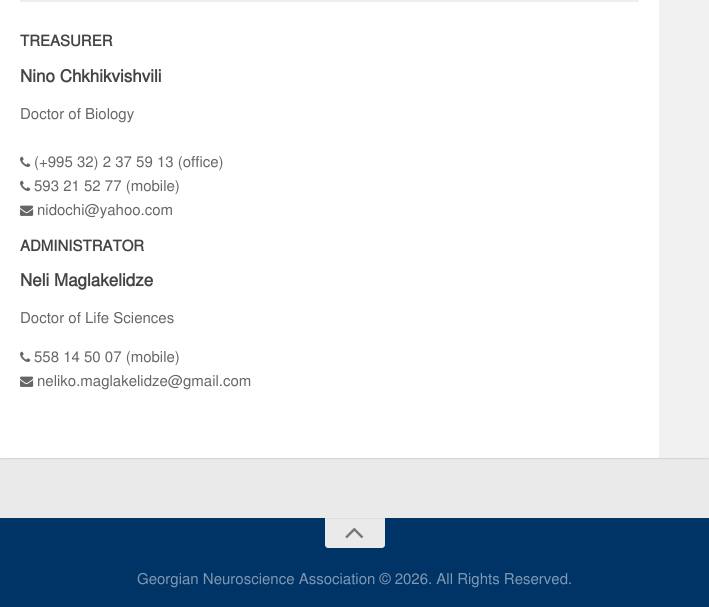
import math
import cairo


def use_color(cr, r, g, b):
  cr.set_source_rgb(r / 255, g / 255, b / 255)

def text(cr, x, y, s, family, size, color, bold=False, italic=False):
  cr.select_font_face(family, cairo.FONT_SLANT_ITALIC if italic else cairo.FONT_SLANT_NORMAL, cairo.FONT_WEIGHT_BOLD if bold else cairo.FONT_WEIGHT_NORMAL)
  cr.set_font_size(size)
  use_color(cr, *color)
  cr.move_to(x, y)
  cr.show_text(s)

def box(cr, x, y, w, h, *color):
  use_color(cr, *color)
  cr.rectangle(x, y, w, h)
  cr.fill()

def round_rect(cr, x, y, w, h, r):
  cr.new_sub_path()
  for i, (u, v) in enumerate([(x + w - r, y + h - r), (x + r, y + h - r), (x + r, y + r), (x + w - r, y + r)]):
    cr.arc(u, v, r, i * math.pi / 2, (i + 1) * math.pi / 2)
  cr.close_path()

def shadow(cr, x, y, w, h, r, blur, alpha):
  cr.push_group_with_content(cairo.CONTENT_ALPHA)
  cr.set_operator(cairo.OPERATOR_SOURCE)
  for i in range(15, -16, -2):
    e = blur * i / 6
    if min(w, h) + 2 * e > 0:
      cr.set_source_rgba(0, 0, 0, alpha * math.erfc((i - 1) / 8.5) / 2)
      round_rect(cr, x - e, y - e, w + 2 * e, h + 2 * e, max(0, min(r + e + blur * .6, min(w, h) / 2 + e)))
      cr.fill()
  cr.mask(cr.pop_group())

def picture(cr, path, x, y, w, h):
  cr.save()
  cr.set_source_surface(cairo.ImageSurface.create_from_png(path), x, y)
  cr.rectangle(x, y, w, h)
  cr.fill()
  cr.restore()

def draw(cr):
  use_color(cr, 234, 234, 234)
  cr.paint()
  use_color(cr, 0, 0, 0)
  shadow(cr, 0, -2, 709, 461, 0, 0.5, 0.1)
  box(cr, 0, 0, 659, 458, 255, 255, 255)
  box(cr, 20, 0, 619, 2, 238, 238, 238)
  picture(cr, "img_01.png", 20, 156, 11, 11)
  picture(cr, "img_01.png", 20, 180, 11, 11)
  picture(cr, "img_02.png", 20, 205, 14, 11)
  picture(cr, "img_01.png", 20, 351, 11, 11)
  picture(cr, "img_02.png", 20, 376, 14, 11)
  box(cr, 659, 0, 50, 458, 240, 240, 240)
  box(cr, 0, 518, 709, 89, 0, 51, 102)
  use_color(cr, 234, 234, 234)
  cr.new_path()
  cr.move_to(325, 518)
  cr.line_to(385, 518)
  cr.line_to(385, 545)
  cr.curve_to(385, 546.5, 383.5, 548, 382, 548)
  cr.line_to(328, 548)
  cr.curve_to(326.5, 548, 325, 546.5, 325, 545)
  cr.close_path()
  cr.fill()
  box(cr, 325, 518, 60, 1, 222, 222, 222)
  picture(cr, "img_03.png", 345, 527, 19, 12)
  text(cr, 20, 46, "TREASURER", "freesans", 15, (68, 68, 68), bold=True)
  text(cr, 20, 82, "Nino Chkhikvishvili", "freesans", 17, (68, 68, 68), bold=True)
  text(cr, 20, 119, "Doctor of Biology", "freesans", 15, (102, 102, 102))
  text(cr, 34, 167, "(+995 32) 2 37 59 13 (office)", "freesans", 15, (102, 102, 102))
  text(cr, 34, 191, "593 21 52 77 (mobile)", "freesans", 15, (102, 102, 102))
  text(cr, 37, 215, "nidochi@yahoo.com", "freesans", 15, (102, 102, 102))
  text(cr, 20, 251, "ADMINISTRATOR", "freesans", 15, (68, 68, 68), bold=True)
  text(cr, 20, 286, "Neli Maglakelidze", "freesans", 17, (68, 68, 68), bold=True)
  text(cr, 20, 323, "Doctor of Life Sciences", "freesans", 15, (102, 102, 102))
  text(cr, 34, 362, "558 14 50 07 (mobile)", "freesans", 15, (102, 102, 102))
  text(cr, 37, 386, "neliko.maglakelidze@gmail.com", "freesans", 15, (102, 102, 102))
  text(cr, 137, 584, "Georgian Neuroscience Association © 2026. All Rights Reserved.", "freesans", 15, (128, 153, 179))


surface = cairo.ImageSurface(cairo.FORMAT_RGB24, 709, 607)
cr = cairo.Context(surface)
options = cairo.FontOptions()
options.set_hint_metrics(cairo.HINT_METRICS_OFF)
options.set_hint_style(cairo.HINT_STYLE_NONE)
cr.set_font_options(options)
cr.set_miter_limit(4)
draw(cr)
surface.write_to_png("out.png")
